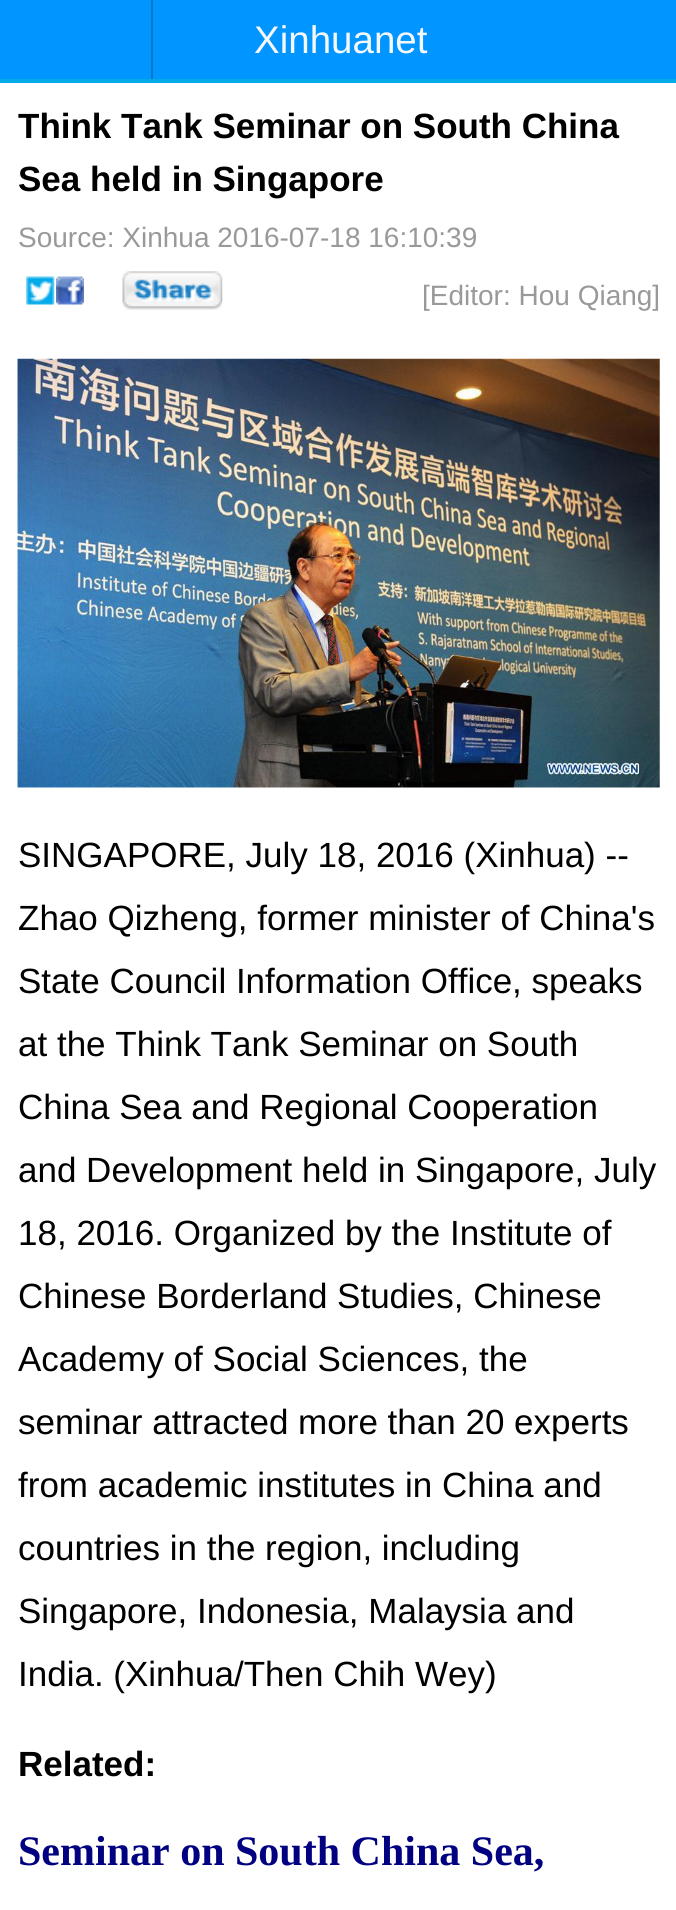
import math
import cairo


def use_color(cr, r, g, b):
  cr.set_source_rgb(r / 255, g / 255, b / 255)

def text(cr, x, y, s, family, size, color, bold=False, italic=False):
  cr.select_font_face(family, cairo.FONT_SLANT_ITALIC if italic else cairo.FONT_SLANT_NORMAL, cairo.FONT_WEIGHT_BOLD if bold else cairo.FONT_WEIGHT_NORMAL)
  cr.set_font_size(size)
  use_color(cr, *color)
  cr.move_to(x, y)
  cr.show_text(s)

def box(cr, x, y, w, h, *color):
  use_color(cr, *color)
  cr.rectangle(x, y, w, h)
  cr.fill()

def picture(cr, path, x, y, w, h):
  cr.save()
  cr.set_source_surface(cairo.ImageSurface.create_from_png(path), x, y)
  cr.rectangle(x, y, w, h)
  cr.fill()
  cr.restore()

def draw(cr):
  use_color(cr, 255, 255, 255)
  cr.paint()
  box(cr, 0, 0, 676, 79, 1, 149, 255)
  box(cr, 0, 79, 676, 4, 0, 171, 231)
  box(cr, 151, 0, 2, 79, 0, 121, 200)
  picture(cr, "img_01.png", 26, 276, 29, 29)
  picture(cr, "img_02.png", 56, 276, 28, 29)
  picture(cr, "img_03.png", 122, 271, 101, 39)
  picture(cr, "img_04.png", 17, 358, 643, 430)
  text(cr, 254, 53, "Xinhuanet", "Liberation Sans", 38.5, (244, 247, 252))
  text(cr, 18, 138, "Think Tank Seminar on South China", "Liberation Sans", 35, (0, 0, 0), bold=True)
  text(cr, 18, 191, "Sea held in Singapore", "Liberation Sans", 35, (0, 0, 0), bold=True)
  text(cr, 18, 247, "Source: Xinhua 2016-07-18 16:10:39", "Liberation Sans", 28, (153, 153, 153))
  text(cr, 422, 305, "[Editor: Hou Qiang]", "Liberation Sans", 28, (153, 153, 153))
  text(cr, 18, 867, "SINGAPORE, July 18, 2016 (Xinhua) --", "Liberation Sans", 35, (0, 0, 0))
  text(cr, 18, 930, "Zhao Qizheng, former minister of China's", "Liberation Sans", 35, (0, 0, 0))
  text(cr, 18, 993, "State Council Information Office, speaks", "Liberation Sans", 35, (0, 0, 0))
  text(cr, 18, 1056, "at the Think Tank Seminar on South", "Liberation Sans", 35, (0, 0, 0))
  text(cr, 18, 1119, "China Sea and Regional Cooperation", "Liberation Sans", 35, (0, 0, 0))
  text(cr, 18, 1182, "and Development held in Singapore, July", "Liberation Sans", 35, (0, 0, 0))
  text(cr, 18, 1245, "18, 2016. Organized by the Institute of", "Liberation Sans", 35, (0, 0, 0))
  text(cr, 18, 1308, "Chinese Borderland Studies, Chinese", "Liberation Sans", 35, (0, 0, 0))
  text(cr, 18, 1371, "Academy of Social Sciences, the", "Liberation Sans", 35, (0, 0, 0))
  text(cr, 18, 1434, "seminar attracted more than 20 experts", "Liberation Sans", 35, (0, 0, 0))
  text(cr, 18, 1497, "from academic institutes in China and", "Liberation Sans", 35, (0, 0, 0))
  text(cr, 18, 1560, "countries in the region, including", "Liberation Sans", 35, (0, 0, 0))
  text(cr, 18, 1623, "Singapore, Indonesia, Malaysia and", "Liberation Sans", 35, (0, 0, 0))
  text(cr, 18, 1686, "India. (Xinhua/Then Chih Wey)", "Liberation Sans", 35, (0, 0, 0))
  text(cr, 18, 1776, "Related:", "Liberation Sans", 35, (0, 0, 0), bold=True)
  text(cr, 18, 1865, "Seminar on South China Sea,", "Liberation Serif", 42, (0, 0, 128), bold=True)


surface = cairo.ImageSurface(cairo.FORMAT_RGB24, 676, 1910)
cr = cairo.Context(surface)
options = cairo.FontOptions()
options.set_hint_metrics(cairo.HINT_METRICS_OFF)
options.set_hint_style(cairo.HINT_STYLE_NONE)
cr.set_font_options(options)
cr.set_miter_limit(4)
draw(cr)
surface.write_to_png("out.png")
